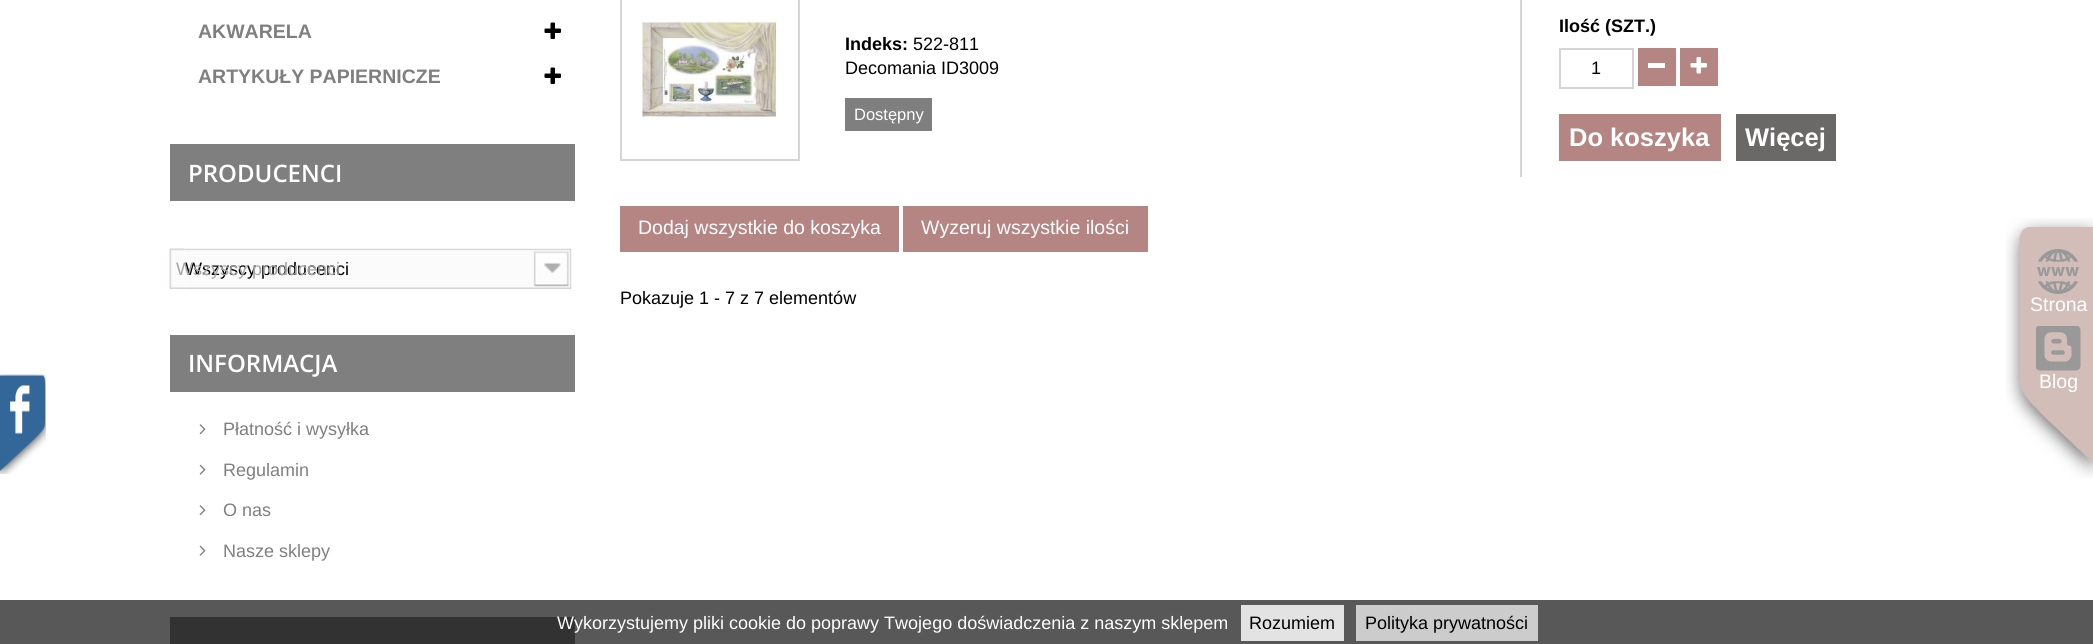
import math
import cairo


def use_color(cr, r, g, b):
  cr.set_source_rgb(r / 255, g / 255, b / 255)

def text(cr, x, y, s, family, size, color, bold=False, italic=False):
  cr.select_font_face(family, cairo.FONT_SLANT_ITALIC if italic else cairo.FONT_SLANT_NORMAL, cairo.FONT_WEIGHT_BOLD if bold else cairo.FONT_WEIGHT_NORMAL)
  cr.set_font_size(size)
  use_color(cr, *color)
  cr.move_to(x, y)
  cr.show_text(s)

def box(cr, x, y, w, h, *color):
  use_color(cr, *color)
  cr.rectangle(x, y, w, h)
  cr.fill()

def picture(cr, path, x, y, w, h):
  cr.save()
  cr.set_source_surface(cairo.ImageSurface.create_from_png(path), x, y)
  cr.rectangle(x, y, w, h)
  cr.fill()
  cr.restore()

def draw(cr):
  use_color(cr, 255, 255, 255)
  cr.paint()
  box(cr, 0, 600, 2093, 44, 88, 88, 88)
  picture(cr, "img_01.png", 544, 22, 17, 17)
  picture(cr, "img_01.png", 544, 67, 17, 17)
  box(cr, 170, 144, 405, 57, 127, 127, 127)
  picture(cr, "img_02.png", 169, 248, 16, 41)
  picture(cr, "img_03.png", 184, 248, 388, 41)
  box(cr, 170, 335, 405, 57, 127, 127, 127)
  picture(cr, "img_04.png", 199, 424, 7, 11)
  picture(cr, "img_05.png", 199, 464, 7, 11)
  picture(cr, "img_04.png", 199, 505, 7, 11)
  picture(cr, "img_05.png", 199, 545, 7, 11)
  box(cr, 170, 617, 405, 27, 50, 50, 50)
  cr.rectangle(621, -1, 178, 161)
  use_color(cr, 214, 212, 212)
  cr.stroke()
  picture(cr, "img_06.png", 641, 21, 137, 99)
  box(cr, 845, 98, 87, 33, 127, 127, 127)
  box(cr, 1520, 0, 2, 177, 214, 212, 212)
  cr.rectangle(1560, 49, 73, 39)
  cr.stroke()
  box(cr, 1638, 48, 38, 38, 181, 133, 131)
  box(cr, 1648, 63, 17, 5, 255, 255, 255)
  box(cr, 1680, 48, 38, 38, 181, 133, 131)
  picture(cr, "img_07.png", 1690, 57, 17, 17)
  box(cr, 1559, 114, 162, 47, 181, 133, 131)
  box(cr, 1736, 114, 100, 47, 107, 104, 104)
  box(cr, 620, 206, 279, 46, 181, 133, 131)
  box(cr, 903, 206, 245, 46, 181, 133, 131)
  box(cr, 1241, 605, 103, 36, 227, 227, 227)
  box(cr, 1356, 605, 182, 36, 204, 204, 204)
  picture(cr, "img_08.png", 2006, 218, 87, 260)
  picture(cr, "img_09.png", 2037, 249, 42, 45)
  picture(cr, "img_10.png", 2036, 326, 45, 45)
  picture(cr, "img_11.png", 0, 374, 46, 100)
  text(cr, 198, 38, "AKWARELA", "Liberation Sans", 19.5, (127, 127, 127), bold=True)
  text(cr, 198, 83, "ARTYKUŁY PAPIERNICZE", "Liberation Sans", 19.5, (127, 127, 127), bold=True)
  text(cr, 188, 182, "PRODUCENCI", "Open Sans SemiBold", 24, (255, 255, 255))
  text(cr, 185, 275, "Wszyscy producenci", "Liberation Sans", 18, (0, 0, 0))
  text(cr, 176, 275, "Wszyscy producenci", "Liberation Sans", 18, (164, 164, 164))
  text(cr, 188, 372, "INFORMACJA", "Open Sans SemiBold", 24, (255, 255, 255))
  text(cr, 223, 435, "Płatność i wysyłka", "Liberation Sans", 18, (127, 127, 127))
  text(cr, 223, 476, "Regulamin", "Liberation Sans", 18, (127, 127, 127))
  text(cr, 223, 516, "O nas", "Liberation Sans", 18, (127, 127, 127))
  text(cr, 223, 557, "Nasze sklepy", "Liberation Sans", 18, (127, 127, 127))
  text(cr, 845, 50, "Indeks:", "Liberation Sans", 18, (0, 0, 0), bold=True)
  text(cr, 913, 50, "522-811", "Liberation Sans", 18, (0, 0, 0))
  text(cr, 845, 74, "Decomania ID3009", "Liberation Sans", 18, (0, 0, 0))
  text(cr, 854, 120, "Dostępny", "Liberation Sans", 16.5, (255, 255, 255))
  text(cr, 1559, 32, "Ilość (SZT.)", "Liberation Sans", 18, (0, 0, 0), bold=True)
  text(cr, 1591, 74, "1", "Liberation Sans", 18, (0, 0, 0))
  text(cr, 1569, 146, "Do koszyka", "Liberation Sans", 25.5, (255, 255, 255), bold=True)
  text(cr, 1745, 146, "Więcej", "Liberation Sans", 25.5, (255, 255, 255), bold=True)
  text(cr, 638, 234, "Dodaj wszystkie do koszyka", "Liberation Sans", 19.5, (255, 255, 255))
  text(cr, 921, 234, "Wyzeruj wszystkie ilości", "Liberation Sans", 19.5, (255, 255, 255))
  text(cr, 620, 304, "Pokazuje 1 - 7 z 7 elementów", "Liberation Sans", 18, (0, 0, 0))
  text(cr, 557, 629, "Wykorzystujemy pliki cookie do poprawy Twojego doświadczenia z naszym sklepem", "Liberation Sans", 18, (255, 255, 255))
  text(cr, 1249, 629, "Rozumiem", "Liberation Sans", 18, (0, 0, 0))
  text(cr, 1365, 629, "Polityka prywatności", "Liberation Sans", 18, (0, 0, 0))
  text(cr, 2030, 311, "Strona", "Liberation Sans", 19.5, (255, 255, 255))
  text(cr, 2039, 388, "Blog", "Liberation Sans", 19.5, (255, 255, 255))


surface = cairo.ImageSurface(cairo.FORMAT_RGB24, 2093, 644)
cr = cairo.Context(surface)
options = cairo.FontOptions()
options.set_hint_metrics(cairo.HINT_METRICS_OFF)
options.set_hint_style(cairo.HINT_STYLE_NONE)
cr.set_font_options(options)
cr.set_miter_limit(4)
draw(cr)
surface.write_to_png("out.png")
